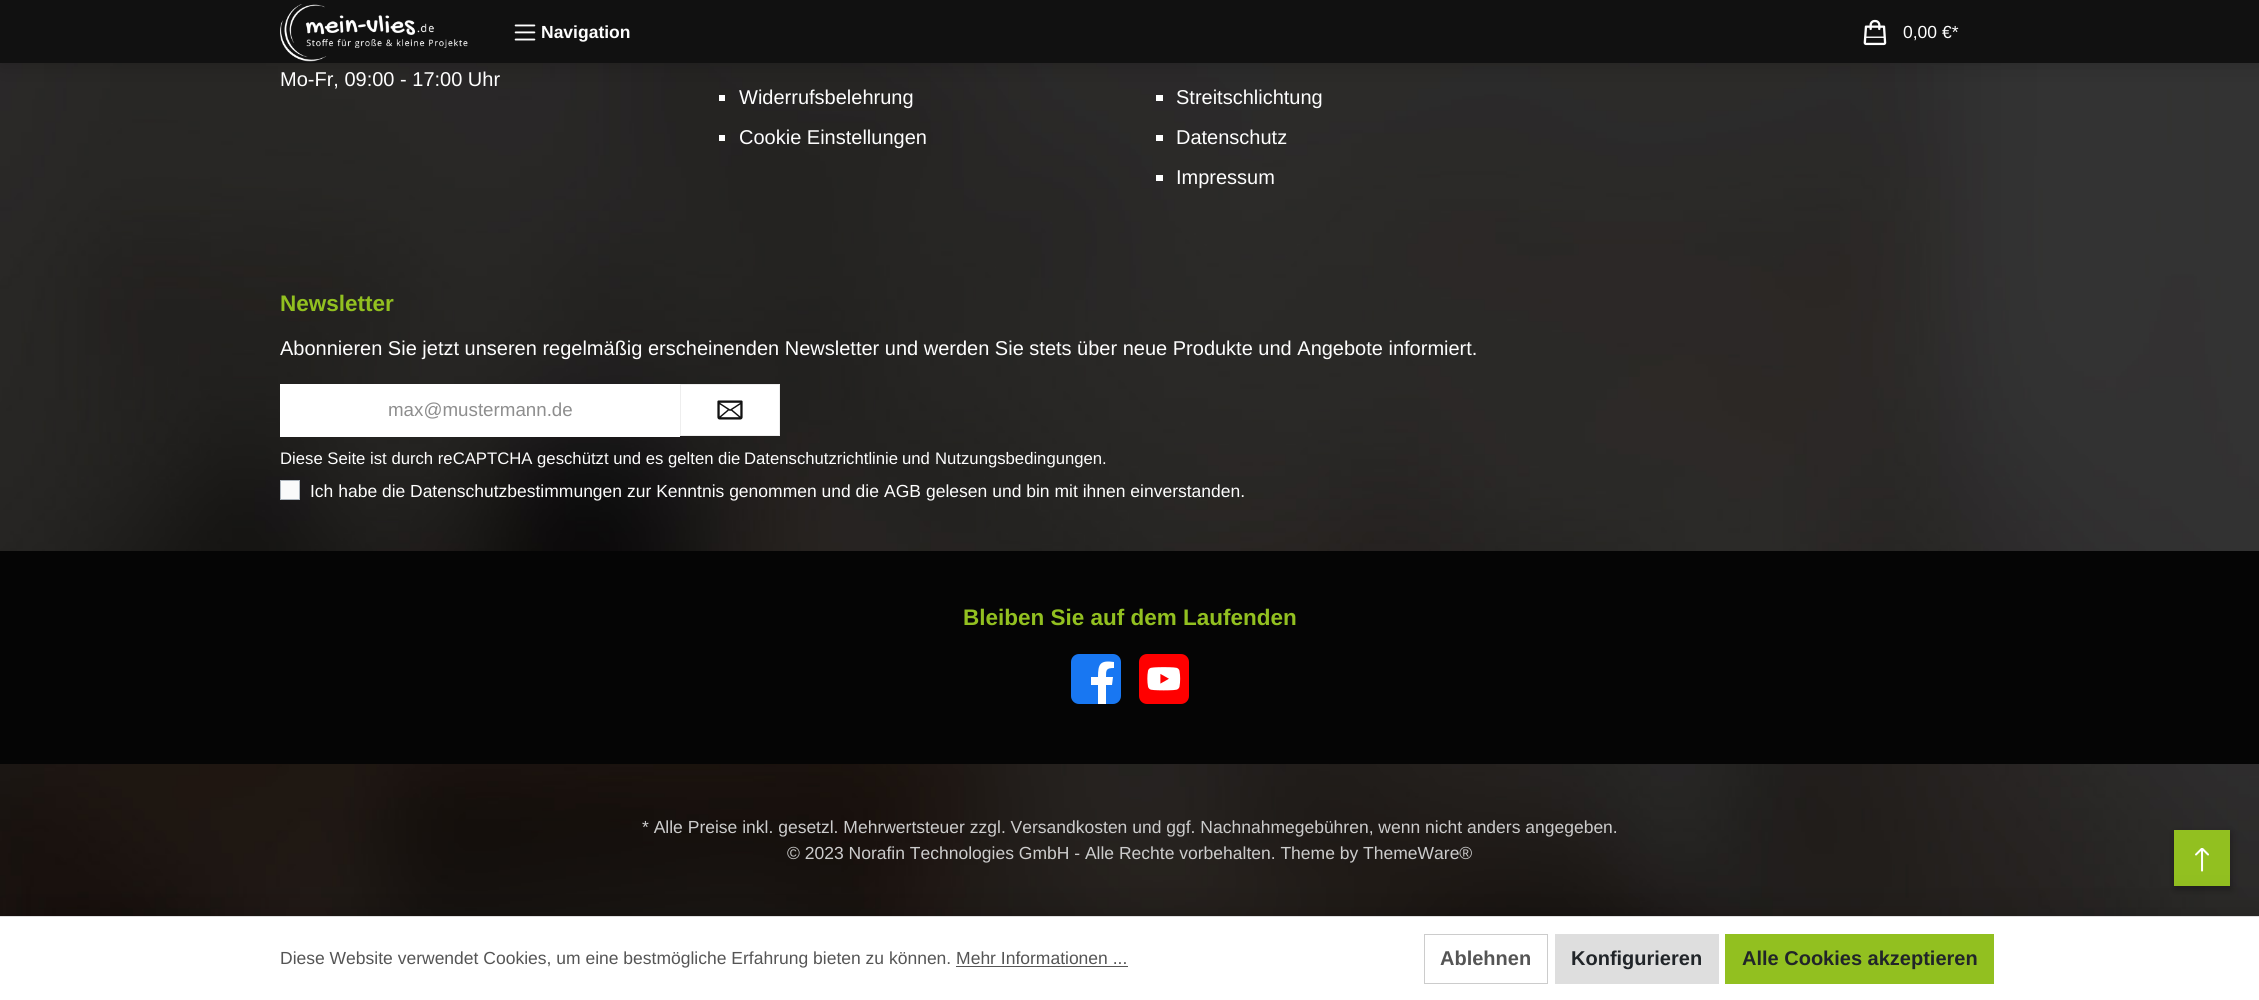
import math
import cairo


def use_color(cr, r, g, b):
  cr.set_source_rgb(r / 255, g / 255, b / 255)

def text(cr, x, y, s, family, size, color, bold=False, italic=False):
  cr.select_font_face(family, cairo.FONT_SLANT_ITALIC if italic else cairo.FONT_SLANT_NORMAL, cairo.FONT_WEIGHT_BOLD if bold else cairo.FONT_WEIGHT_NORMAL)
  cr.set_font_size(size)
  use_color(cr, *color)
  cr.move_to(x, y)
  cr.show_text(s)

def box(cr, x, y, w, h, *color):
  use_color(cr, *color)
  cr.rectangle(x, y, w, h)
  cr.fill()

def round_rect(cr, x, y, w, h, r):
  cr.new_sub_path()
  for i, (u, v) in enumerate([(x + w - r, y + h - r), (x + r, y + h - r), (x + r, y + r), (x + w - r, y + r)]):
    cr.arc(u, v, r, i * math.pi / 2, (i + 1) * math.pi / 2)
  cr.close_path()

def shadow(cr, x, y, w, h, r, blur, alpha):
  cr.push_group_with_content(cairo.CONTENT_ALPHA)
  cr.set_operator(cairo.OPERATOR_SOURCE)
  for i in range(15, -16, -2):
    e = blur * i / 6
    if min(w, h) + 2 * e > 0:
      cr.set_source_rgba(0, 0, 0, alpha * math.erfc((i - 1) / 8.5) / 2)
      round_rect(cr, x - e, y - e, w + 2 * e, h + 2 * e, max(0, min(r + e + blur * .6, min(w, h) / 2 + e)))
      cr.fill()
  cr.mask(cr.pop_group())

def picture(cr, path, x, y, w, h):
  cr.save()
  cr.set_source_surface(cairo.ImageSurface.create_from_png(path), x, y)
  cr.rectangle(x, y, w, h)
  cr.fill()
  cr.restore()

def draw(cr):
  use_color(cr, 255, 255, 255)
  cr.paint()
  picture(cr, "img_04.png", 0, 63, 2259, 853)
  box(cr, 719, 95, 6, 6, 255, 255, 255)
  box(cr, 1156, 95, 7, 6, 255, 255, 255)
  use_color(cr, 0, 0, 0)
  shadow(cr, 0, 0, 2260, 63, 0, 12.5, 0.2)
  box(cr, 0, 0, 2259, 63, 17, 17, 17)
  picture(cr, "img_01.png", 280, 4, 188, 58)
  picture(cr, "img_02.png", 514, 24, 22, 17)
  picture(cr, "img_03.png", 1863, 19, 24, 27)
  box(cr, 719, 135, 6, 6, 255, 255, 255)
  box(cr, 1156, 135, 7, 6, 255, 255, 255)
  box(cr, 1156, 175, 7, 6, 255, 255, 255)
  box(cr, 280, 384, 400, 53, 255, 255, 255)
  cr.rectangle(680.5, 384.5, 99, 51)
  cr.fill_preserve()
  use_color(cr, 238, 238, 238)
  cr.set_line_width(1)
  cr.stroke()
  picture(cr, "img_05.png", 717, 400, 26, 20)
  use_color(cr, 250, 250, 250)
  cr.rectangle(280.5, 480.5, 19, 19)
  cr.fill_preserve()
  use_color(cr, 173, 181, 189)
  cr.stroke()
  box(cr, 0, 551, 2259, 213, 5, 5, 5)
  use_color(cr, 24, 119, 242)
  round_rect(cr, 1071, 654, 50, 50, 8)
  cr.fill()
  use_color(cr, 255, 255, 255)
  cr.new_path()
  cr.move_to(1112, 685)
  cr.line_to(1113, 677)
  cr.line_to(1106, 677)
  cr.curve_to(1106, 670, 1106, 668, 1114, 668)
  cr.line_to(1114, 662)
  cr.curve_to(1100, 660, 1098, 664, 1098, 677)
  cr.line_to(1091, 677)
  cr.line_to(1091, 685)
  cr.line_to(1098, 685)
  cr.line_to(1098, 704)
  cr.line_to(1106, 704)
  cr.line_to(1106, 685)
  cr.close_path()
  cr.fill()
  picture(cr, "img_06.png", 1139, 654, 50, 50)
  use_color(cr, 0, 0, 0)
  shadow(cr, 2175, 833, 56, 56, 0, 4, 0.3)
  box(cr, 2174, 830, 56, 56, 146, 192, 32)
  picture(cr, "img_07.png", 2195, 848, 14, 24)
  use_color(cr, 0, 0, 0)
  shadow(cr, 0, 916, 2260, 84, 0, 19, 0.2)
  box(cr, 0, 917, 2259, 83, 255, 255, 255)
  box(cr, 0, 916, 2259, 1, 222, 222, 222)
  box(cr, 956, 966, 172, 1, 85, 85, 85)
  cr.rectangle(1424.5, 934.5, 123, 49)
  use_color(cr, 204, 204, 204)
  cr.stroke()
  box(cr, 1555, 934, 164, 50, 222, 222, 222)
  box(cr, 1725, 934, 269, 50, 146, 192, 32)
  text(cr, 541, 38, "Navigation", "Liberation Sans", 17.5, (254, 254, 254), bold=True)
  text(cr, 1903, 38, "0,00 €*", "Liberation Sans", 17.5, (254, 254, 254))
  text(cr, 280, 86, "Mo-Fr, 09:00 - 17:00 Uhr", "Liberation Sans", 20, (254, 254, 254))
  text(cr, 739, 104, "Widerrufsbelehrung", "Liberation Sans", 20, (254, 254, 254))
  text(cr, 739, 144, "Cookie Einstellungen", "Liberation Sans", 20, (254, 254, 254))
  text(cr, 1176, 104, "Streitschlichtung", "Liberation Sans", 20, (254, 254, 254))
  text(cr, 1176, 144, "Datenschutz", "Liberation Sans", 20, (254, 254, 254))
  text(cr, 1176, 184, "Impressum", "Liberation Sans", 20, (254, 254, 254))
  text(cr, 280, 311, "Newsletter", "Liberation Sans", 22.5, (146, 192, 32), bold=True)
  text(cr, 280, 355, "Abonnieren Sie jetzt unseren regelmäßig erscheinenden Newsletter und werden Sie stets über neue Produkte und Angebote informiert.", "Liberation Sans", 20, (254, 254, 254))
  text(cr, 388, 416, "max@mustermann.de", "Liberation Sans", 18.75, (142, 142, 142))
  text(cr, 280, 464, "Diese Seite ist durch reCAPTCHA geschützt und es gelten die", "Liberation Sans", 16.7, (254, 254, 254))
  text(cr, 744, 464, "Datenschutzrichtlinie", "Liberation Sans", 16.7, (254, 254, 254))
  text(cr, 902, 464, "und", "Liberation Sans", 16.7, (254, 254, 254))
  text(cr, 935, 464, "Nutzungsbedingungen", "Liberation Sans", 16.7, (254, 254, 254))
  text(cr, 1102, 464, ".", "Liberation Sans", 16.7, (254, 254, 254))
  text(cr, 310, 497, "Ich habe die", "Liberation Sans", 17.5, (254, 254, 254))
  text(cr, 410, 497, "Datenschutzbestimmungen", "Liberation Sans", 17.5, (254, 254, 254))
  text(cr, 627, 497, "zur Kenntnis genommen und die", "Liberation Sans", 17.5, (254, 254, 254))
  text(cr, 884, 497, "AGB", "Liberation Sans", 17.5, (254, 254, 254))
  text(cr, 926, 497, "gelesen und bin mit ihnen einverstanden.", "Liberation Sans", 17.5, (254, 254, 254))
  text(cr, 963, 625, "Bleiben Sie auf dem Laufenden", "Liberation Sans", 22.5, (146, 192, 32), bold=True)
  text(cr, 642, 833, "* Alle Preise inkl. gesetzl. Mehrwertsteuer zzgl. Versandkosten und ggf. Nachnahmegebühren, wenn nicht anders angegeben.", "Liberation Sans", 17.5, (204, 204, 204))
  text(cr, 787, 859, "© 2023 Norafin Technologies GmbH - Alle Rechte vorbehalten. Theme by ThemeWare®", "Liberation Sans", 17.5, (204, 204, 204))
  text(cr, 280, 964, "Diese Website verwendet Cookies, um eine bestmögliche Erfahrung bieten zu können. Mehr Informationen ...", "Liberation Sans", 17.5, (85, 85, 85))
  text(cr, 1440, 965, "Ablehnen", "Liberation Sans", 20, (85, 85, 85), bold=True)
  text(cr, 1571, 965, "Konfigurieren", "Liberation Sans", 20, (33, 37, 41), bold=True)
  text(cr, 1742, 965, "Alle Cookies akzeptieren", "Liberation Sans", 20, (33, 37, 41), bold=True)


surface = cairo.ImageSurface(cairo.FORMAT_RGB24, 2259, 1000)
cr = cairo.Context(surface)
options = cairo.FontOptions()
options.set_hint_metrics(cairo.HINT_METRICS_OFF)
options.set_hint_style(cairo.HINT_STYLE_NONE)
cr.set_font_options(options)
cr.set_miter_limit(4)
draw(cr)
surface.write_to_png("out.png")
